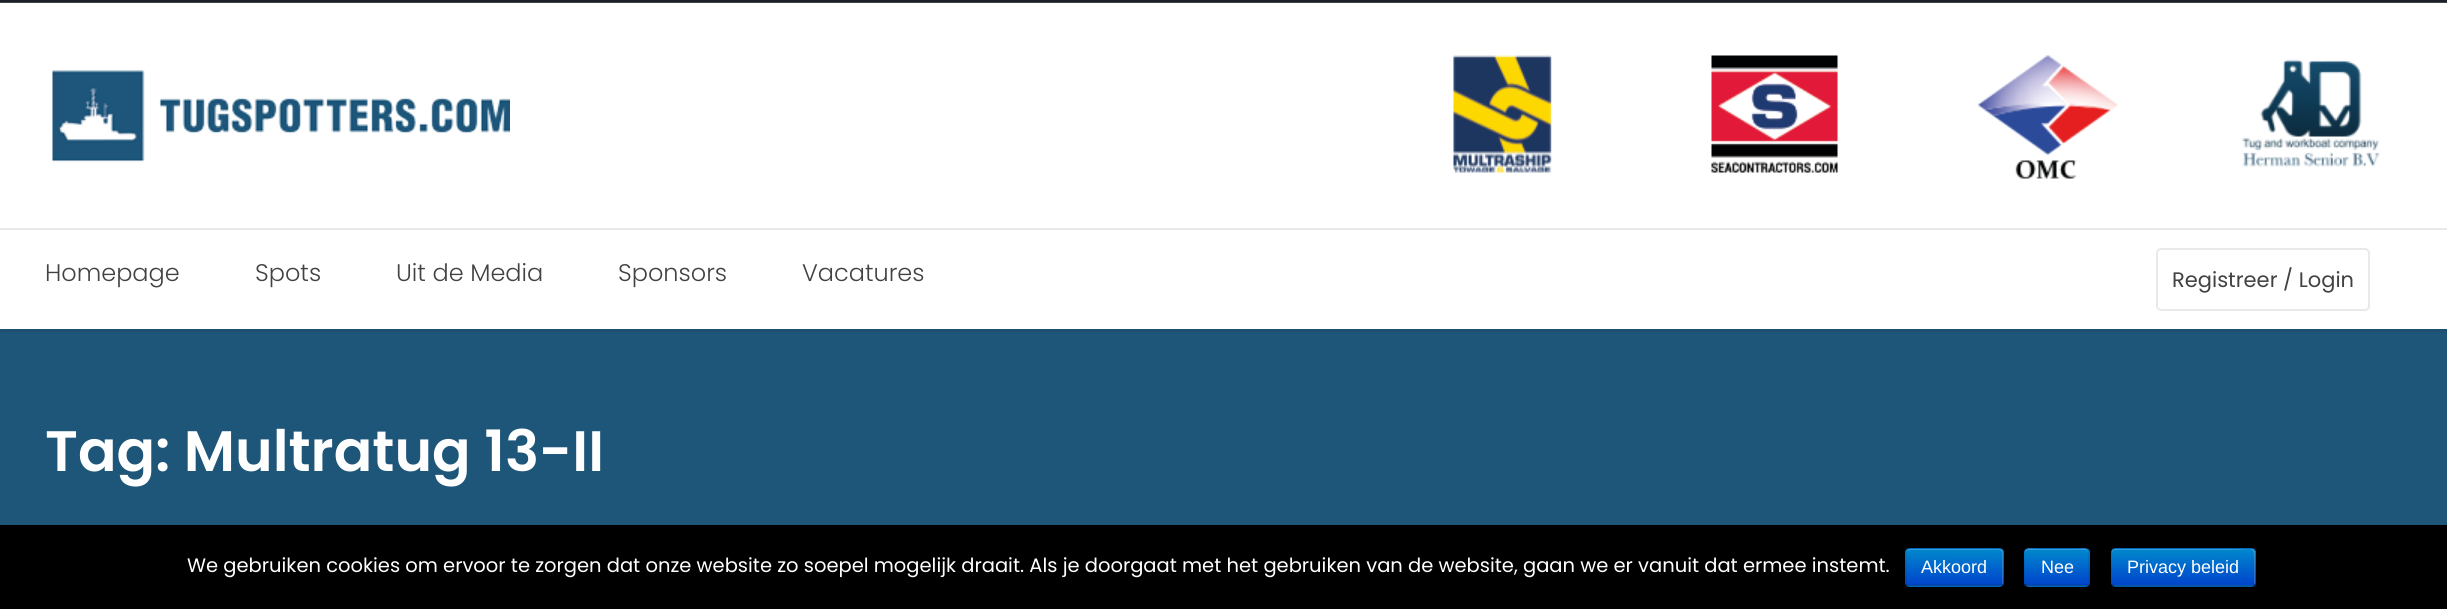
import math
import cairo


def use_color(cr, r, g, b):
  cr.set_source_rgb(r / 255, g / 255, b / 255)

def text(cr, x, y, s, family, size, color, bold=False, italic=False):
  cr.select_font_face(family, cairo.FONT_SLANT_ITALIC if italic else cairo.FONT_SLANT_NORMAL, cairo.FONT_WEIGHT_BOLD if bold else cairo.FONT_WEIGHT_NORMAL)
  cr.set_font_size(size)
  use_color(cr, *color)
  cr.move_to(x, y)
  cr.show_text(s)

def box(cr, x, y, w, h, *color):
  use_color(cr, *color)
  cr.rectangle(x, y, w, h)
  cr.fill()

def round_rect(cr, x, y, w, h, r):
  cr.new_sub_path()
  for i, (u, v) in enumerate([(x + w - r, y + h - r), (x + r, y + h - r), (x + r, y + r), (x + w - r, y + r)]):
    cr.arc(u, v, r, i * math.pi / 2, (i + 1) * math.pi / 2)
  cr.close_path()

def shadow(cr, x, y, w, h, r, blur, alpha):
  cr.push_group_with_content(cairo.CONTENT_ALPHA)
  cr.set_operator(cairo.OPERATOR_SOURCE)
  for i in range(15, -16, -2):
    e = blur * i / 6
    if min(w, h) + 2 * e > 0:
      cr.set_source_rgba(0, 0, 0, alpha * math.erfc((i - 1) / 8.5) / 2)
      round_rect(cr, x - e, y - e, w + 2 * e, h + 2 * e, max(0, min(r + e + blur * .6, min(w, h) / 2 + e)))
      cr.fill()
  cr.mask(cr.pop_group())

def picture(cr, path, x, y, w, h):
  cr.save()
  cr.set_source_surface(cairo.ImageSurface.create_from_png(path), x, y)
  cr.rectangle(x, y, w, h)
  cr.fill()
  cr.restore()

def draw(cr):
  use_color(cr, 27, 33, 38)
  cr.paint()
  box(cr, 0, 2, 2447, 1, 62, 66, 70)
  box(cr, 0, 329, 2447, 196, 30, 86, 122)
  use_color(cr, 0, 0, 0)
  shadow(cr, 0, 6, 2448, 326, 0, 2, 0.1)
  box(cr, 0, 3, 2447, 326, 255, 255, 255)
  box(cr, 0, 228, 2447, 2, 233, 233, 233)
  picture(cr, "img_01.png", 52, 70, 458, 92)
  picture(cr, "img_02.png", 1453, 55, 927, 124)
  round_rect(cr, 2157, 249, 212, 61, 4)
  cr.stroke()
  box(cr, 0, 525, 2447, 84, 0, 0, 0)
  use_color(cr, 0, 109, 204)
  round_rect(cr, 1905, 548, 99, 39, 5)
  cr.fill()
  cr.save()
  round_rect(cr, 1905, 548, 99, 39, 5)
  cr.clip()
  gradient = cairo.LinearGradient(1955, 549, 1955, 585)
  gradient.add_color_stop_rgba(0, 0, 0.533, 0.8, 1)
  gradient.add_color_stop_rgba(1, 0, 0.267, 0.8, 1)
  cr.set_source(gradient)
  cr.rectangle(1905, 549, 99, 36)
  cr.fill()
  cr.restore()
  cr.set_source_rgba(1, 1, 1, 0.2)
  cr.new_path()
  cr.move_to(1910, 550)
  cr.line_to(1985, 550)
  cr.curve_to(2005, 550, 2002, 547, 2002, 564)
  cr.line_to(2002, 584)
  cr.curve_to(2003, 584, 2003, 583, 2003, 582)
  cr.line_to(2003, 552)
  cr.curve_to(2003, 550, 2002, 549, 2000, 549)
  cr.line_to(1910, 549)
  cr.curve_to(1909, 549, 1907, 550, 1907, 551)
  cr.close_path()
  cr.fill()
  cr.new_path()
  cr.move_to(2002, 584.5)
  cr.line_to(2000, 585.5)
  cr.line_to(1909, 585.5)
  cr.line_to(1907, 584.5)
  cr.set_source_rgba(0, 0, 0, 0.25)
  cr.set_line_width(1.5)
  cr.stroke()
  cr.new_path()
  cr.move_to(1907, 584.5)
  cr.curve_to(1905, 583, 1906, 579, 1906, 577)
  cr.line_to(1906, 567)
  cr.curve_to(1906, 545, 1902, 548, 1924.5, 548)
  cr.line_to(1984.5, 548)
  cr.curve_to(2007, 548, 2003, 545, 2003, 567)
  cr.line_to(2003, 577)
  cr.curve_to(2003, 579, 2004, 583, 2002, 584.5)
  cr.set_source_rgba(0, 0, 0, 0.1)
  cr.stroke()
  use_color(cr, 0, 109, 204)
  round_rect(cr, 2024, 548, 66, 39, 5)
  cr.fill()
  cr.save()
  round_rect(cr, 2024, 548, 66, 39, 5)
  cr.clip()
  gradient = cairo.LinearGradient(2057, 549, 2057, 585)
  gradient.add_color_stop_rgba(0, 0, 0.533, 0.8, 1)
  gradient.add_color_stop_rgba(1, 0, 0.267, 0.8, 1)
  cr.set_source(gradient)
  cr.rectangle(2024, 549, 66, 36)
  cr.fill()
  cr.restore()
  cr.set_source_rgba(1, 1, 1, 0.2)
  cr.new_path()
  cr.move_to(2028, 550)
  cr.line_to(2085, 550)
  cr.curve_to(2087, 550, 2088, 552, 2088, 554)
  cr.curve_to(2088, 546, 2083, 549, 2076, 549)
  cr.line_to(2038, 549)
  cr.curve_to(2030, 549, 2025, 546, 2025, 554)
  cr.curve_to(2025, 552, 2026, 550, 2028, 550)
  cr.close_path()
  cr.fill()
  cr.new_path()
  cr.move_to(2087.5, 584.5)
  cr.line_to(2085.5, 585.5)
  cr.line_to(2027.5, 585.5)
  cr.line_to(2025.5, 584.5)
  cr.set_source_rgba(0, 0, 0, 0.25)
  cr.stroke()
  cr.new_path()
  cr.move_to(2025.5, 584.5)
  cr.curve_to(2023.5, 583, 2024, 579, 2024, 577)
  cr.line_to(2024, 567)
  cr.curve_to(2024, 548, 2020, 548, 2037.5, 548)
  cr.line_to(2075.5, 548)
  cr.curve_to(2093, 548, 2089, 548, 2089, 567)
  cr.line_to(2089, 577)
  cr.curve_to(2089, 579, 2089.5, 583, 2087.5, 584.5)
  cr.set_source_rgba(0, 0, 0, 0.1)
  cr.stroke()
  use_color(cr, 0, 109, 204)
  round_rect(cr, 2111, 548, 145, 39, 5)
  cr.fill()
  cr.save()
  round_rect(cr, 2111, 548, 145, 39, 5)
  cr.clip()
  gradient = cairo.LinearGradient(2183, 549, 2183, 585)
  gradient.add_color_stop_rgba(0, 0, 0.533, 0.8, 1)
  gradient.add_color_stop_rgba(1, 0, 0.267, 0.8, 1)
  cr.set_source(gradient)
  cr.rectangle(2111, 549, 145, 36)
  cr.fill()
  cr.restore()
  cr.set_source_rgba(1, 1, 1, 0.2)
  cr.new_path()
  cr.move_to(2115, 550)
  cr.line_to(2229, 550)
  cr.curve_to(2255, 550, 2254, 544, 2254, 564)
  cr.line_to(2254, 584)
  cr.curve_to(2255, 584, 2255, 583, 2255, 582)
  cr.line_to(2255, 552)
  cr.curve_to(2255, 550, 2254, 549, 2252, 549)
  cr.line_to(2115, 549)
  cr.curve_to(2113, 549, 2112, 550, 2112, 552)
  cr.line_to(2112, 554)
  cr.curve_to(2112, 552, 2113, 550, 2115, 550)
  cr.close_path()
  cr.fill()
  cr.new_path()
  cr.move_to(2254, 584.5)
  cr.curve_to(2253.5, 585.5, 2252.5, 586, 2251.5, 586)
  cr.line_to(2115, 586)
  cr.curve_to(2114, 586, 2113, 585.5, 2112.5, 584.5)
  cr.set_source_rgba(0, 0, 0, 0.25)
  cr.stroke()
  cr.new_path()
  cr.move_to(2112.5, 584.5)
  cr.curve_to(2110, 582, 2111, 574.5, 2111, 572)
  cr.curve_to(2111, 542.5, 2106, 548, 2138, 548)
  cr.line_to(2229, 548)
  cr.curve_to(2260.5, 548, 2255, 542.5, 2255, 572)
  cr.curve_to(2255, 574.5, 2256.5, 582, 2254, 584.5)
  cr.set_source_rgba(0, 0, 0, 0.1)
  cr.stroke()
  text(cr, 45, 281, "Homepage", "Poppins Light", 24, (66, 66, 66))
  text(cr, 255, 281, "Spots", "Poppins Light", 24, (66, 66, 66))
  text(cr, 396, 281, "Uit de Media", "Poppins Light", 24, (66, 66, 66))
  text(cr, 618, 281, "Sponsors", "Poppins Light", 24, (66, 66, 66))
  text(cr, 802, 281, "Vacatures", "Poppins Light", 24, (66, 66, 66))
  text(cr, 2172, 287, "Registreer / Login", "Poppins", 21, (66, 66, 66))
  text(cr, 45, 471, "Tag: Multratug 13-II", "Poppins SemiBold", 57, (255, 255, 255))
  text(cr, 187, 572, "We gebruiken cookies om ervoor te zorgen dat onze website zo soepel mogelijk draait. Als je doorgaat met het gebruiken van de website, gaan we er vanuit dat ermee instemt.", "Poppins", 19.5, (255, 255, 255))
  text(cr, 1921, 573, "Akkoord", "Liberation Sans", 18, (255, 255, 255))
  text(cr, 2041, 573, "Nee", "Liberation Sans", 18, (255, 255, 255))
  text(cr, 2127, 573, "Privacy beleid", "Liberation Sans", 18, (255, 255, 255))


surface = cairo.ImageSurface(cairo.FORMAT_RGB24, 2447, 609)
cr = cairo.Context(surface)
options = cairo.FontOptions()
options.set_hint_metrics(cairo.HINT_METRICS_OFF)
options.set_hint_style(cairo.HINT_STYLE_NONE)
cr.set_font_options(options)
cr.set_miter_limit(4)
draw(cr)
surface.write_to_png("out.png")
